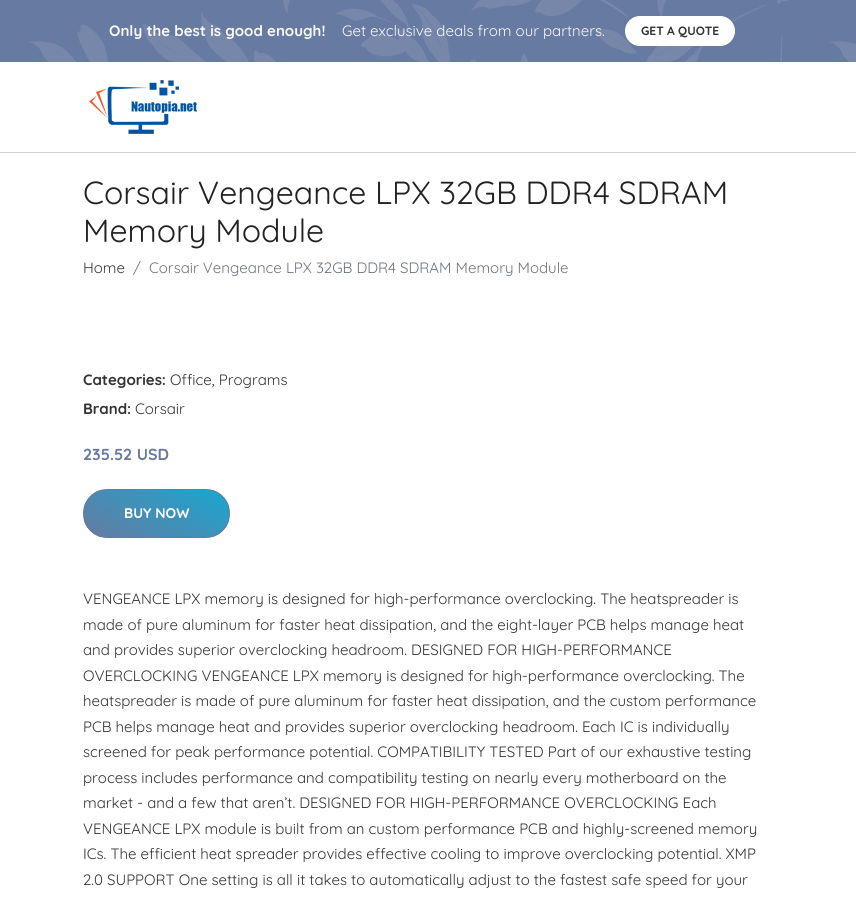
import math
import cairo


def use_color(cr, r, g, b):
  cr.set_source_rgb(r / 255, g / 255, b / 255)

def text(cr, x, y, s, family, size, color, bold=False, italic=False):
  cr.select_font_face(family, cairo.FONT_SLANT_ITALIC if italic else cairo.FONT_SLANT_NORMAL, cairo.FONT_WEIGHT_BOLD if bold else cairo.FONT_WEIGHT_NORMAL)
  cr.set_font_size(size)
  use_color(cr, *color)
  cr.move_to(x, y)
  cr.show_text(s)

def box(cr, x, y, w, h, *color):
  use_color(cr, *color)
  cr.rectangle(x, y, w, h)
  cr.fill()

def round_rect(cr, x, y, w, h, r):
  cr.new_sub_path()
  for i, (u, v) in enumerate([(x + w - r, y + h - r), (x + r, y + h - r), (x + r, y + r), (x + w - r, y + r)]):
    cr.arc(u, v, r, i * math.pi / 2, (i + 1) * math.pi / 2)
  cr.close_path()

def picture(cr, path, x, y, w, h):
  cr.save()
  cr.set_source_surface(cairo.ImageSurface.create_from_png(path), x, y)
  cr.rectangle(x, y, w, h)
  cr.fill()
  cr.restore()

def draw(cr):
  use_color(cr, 255, 255, 255)
  cr.paint()
  box(cr, 0, 152, 856, 1, 209, 209, 209)
  box(cr, 0, 0, 29, 62, 103, 122, 161)
  picture(cr, "img_01.png", 29, 0, 827, 62)
  use_color(cr, 255, 255, 255)
  round_rect(cr, 625.5, 16.5, 109, 29, 14.5)
  cr.fill_preserve()
  cr.set_line_width(1)
  cr.stroke()
  picture(cr, "img_02.png", 89, 80, 108, 54)
  cr.save()
  round_rect(cr, 83, 489, 147, 49, 24.5)
  cr.clip()
  gradient = cairo.LinearGradient(132, 561, 181, 466)
  gradient.add_color_stop_rgba(0, 0.404, 0.478, 0.631, 1)
  gradient.add_color_stop_rgba(1, 0.098, 0.655, 0.812, 1)
  cr.set_source(gradient)
  cr.rectangle(84, 490, 145, 47)
  cr.fill()
  cr.restore()
  round_rect(cr, 83.5, 489.5, 146, 48, 24)
  use_color(cr, 103, 122, 161)
  cr.stroke()
  text(cr, 109, 36, "Only the best is good enough!", "Quicksand", 15, (248, 249, 250), bold=True)
  text(cr, 342, 36, "Get exclusive deals from our partners.", "Quicksand", 15, (248, 249, 250))
  text(cr, 641, 35, "GET A QUOTE", "Quicksand", 12, (51, 51, 51), bold=True)
  text(cr, 83, 204, "Corsair Vengeance LPX 32GB DDR4 SDRAM", "Quicksand", 32, (34, 34, 34))
  text(cr, 83, 242, "Memory Module", "Quicksand", 32, (34, 34, 34))
  text(cr, 83, 273, "Home", "Quicksand", 15, (52, 58, 64))
  text(cr, 133, 273, "/", "Quicksand", 15, (108, 117, 125))
  text(cr, 149, 273, "Corsair Vengeance LPX 32GB DDR4 SDRAM Memory Module", "Quicksand", 15, (108, 117, 125))
  text(cr, 83, 385, "Categories:", "Quicksand", 15, (51, 51, 51), bold=True)
  text(cr, 170, 385, "Office, Programs", "Quicksand", 15, (51, 51, 51))
  text(cr, 83, 414, "Brand:", "Quicksand", 15, (51, 51, 51), bold=True)
  text(cr, 135, 414, "Corsair", "Quicksand", 15, (51, 51, 51))
  text(cr, 83, 460, "235.52 USD", "Quicksand", 16, (103, 122, 161), bold=True)
  text(cr, 124, 518, "BUY NOW", "Quicksand", 14, (255, 255, 255), bold=True)
  text(cr, 83, 604, "VENGEANCE LPX memory is designed for high-performance overclocking. The heatspreader is", "Quicksand", 15, (51, 51, 51))
  text(cr, 83, 630, "made of pure aluminum for faster heat dissipation, and the eight-layer PCB helps manage heat", "Quicksand", 15, (51, 51, 51))
  text(cr, 83, 655, "and provides superior overclocking headroom. DESIGNED FOR HIGH-PERFORMANCE", "Quicksand", 15, (51, 51, 51))
  text(cr, 83, 681, "OVERCLOCKING VENGEANCE LPX memory is designed for high-performance overclocking. The", "Quicksand", 15, (51, 51, 51))
  text(cr, 83, 706, "heatspreader is made of pure aluminum for faster heat dissipation, and the custom performance", "Quicksand", 15, (51, 51, 51))
  text(cr, 83, 732, "PCB helps manage heat and provides superior overclocking headroom. Each IC is individually", "Quicksand", 15, (51, 51, 51))
  text(cr, 83, 757, "screened for peak performance potential. COMPATIBILITY TESTED Part of our exhaustive testing", "Quicksand", 15, (51, 51, 51))
  text(cr, 83, 783, "process includes performance and compatibility testing on nearly every motherboard on the", "Quicksand", 15, (51, 51, 51))
  text(cr, 83, 808, "market - and a few that aren’t. DESIGNED FOR HIGH-PERFORMANCE OVERCLOCKING Each", "Quicksand", 15, (51, 51, 51))
  text(cr, 83, 834, "VENGEANCE LPX module is built from an custom performance PCB and highly-screened memory", "Quicksand", 15, (51, 51, 51))
  text(cr, 83, 859, "ICs. The efficient heat spreader provides effective cooling to improve overclocking potential. XMP", "Quicksand", 15, (51, 51, 51))
  text(cr, 83, 885, "2.0 SUPPORT One setting is all it takes to automatically adjust to the fastest safe speed for your", "Quicksand", 15, (51, 51, 51))


surface = cairo.ImageSurface(cairo.FORMAT_RGB24, 856, 900)
cr = cairo.Context(surface)
options = cairo.FontOptions()
options.set_hint_metrics(cairo.HINT_METRICS_OFF)
options.set_hint_style(cairo.HINT_STYLE_NONE)
cr.set_font_options(options)
cr.set_miter_limit(4)
draw(cr)
surface.write_to_png("out.png")
